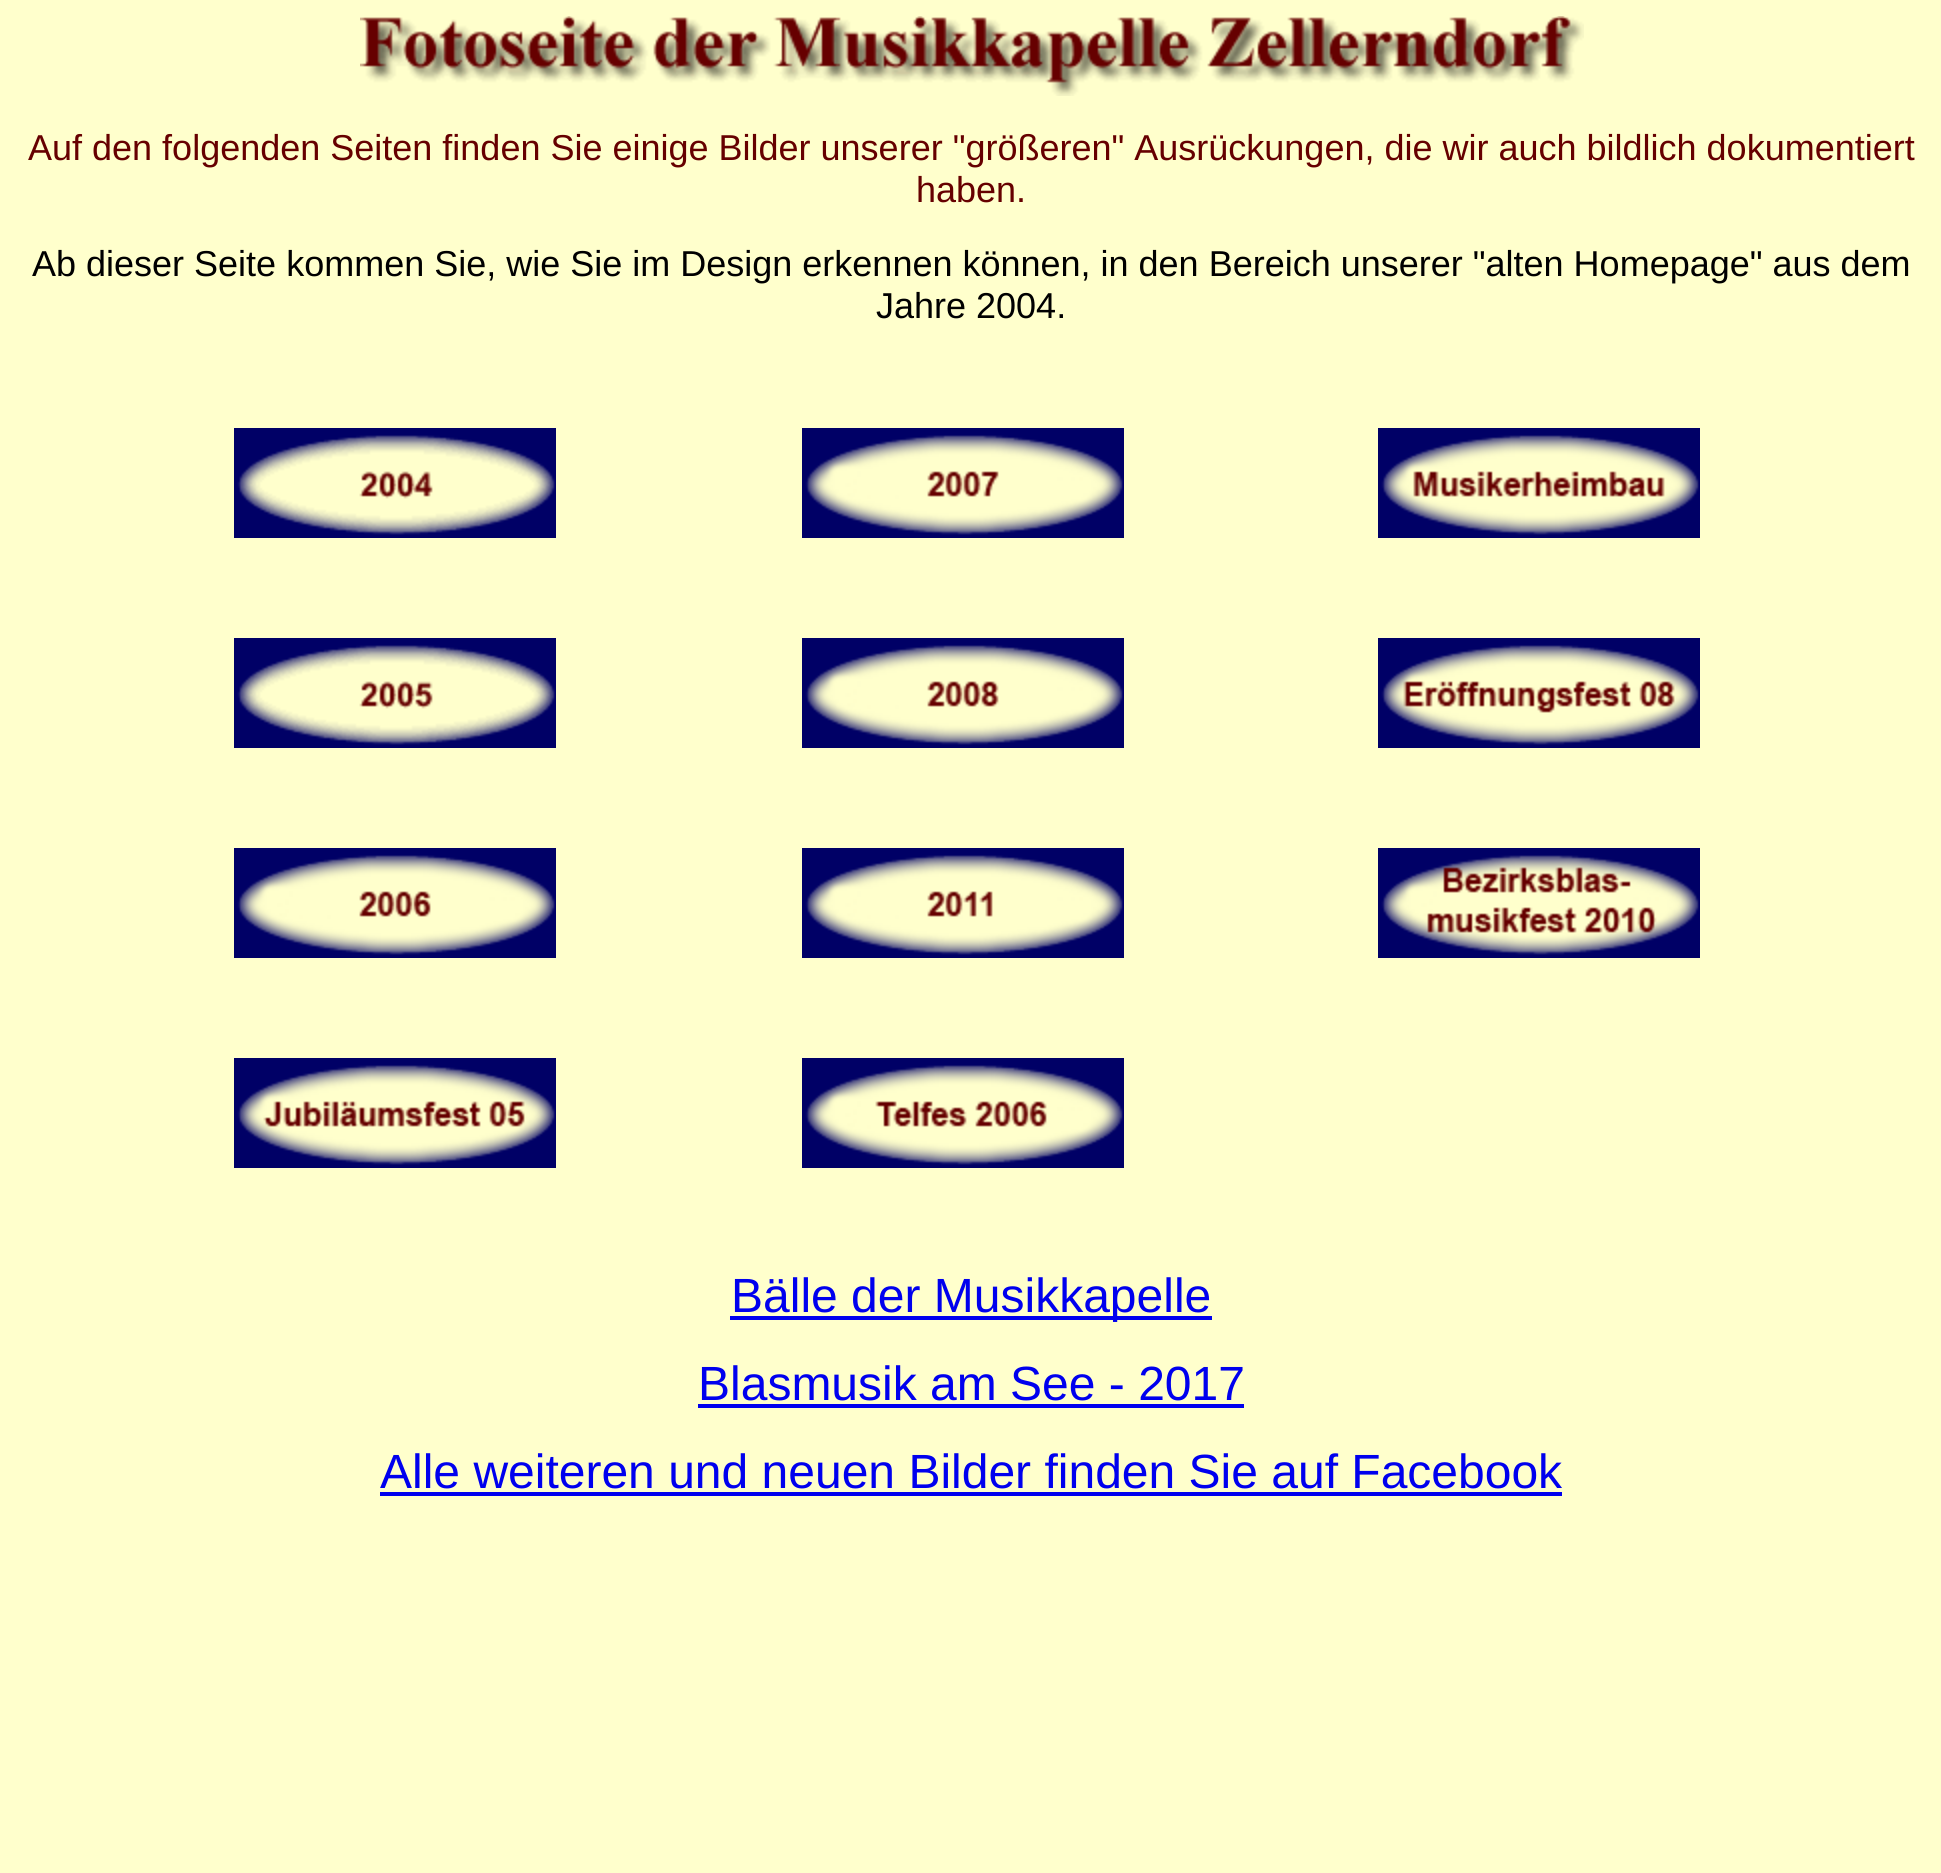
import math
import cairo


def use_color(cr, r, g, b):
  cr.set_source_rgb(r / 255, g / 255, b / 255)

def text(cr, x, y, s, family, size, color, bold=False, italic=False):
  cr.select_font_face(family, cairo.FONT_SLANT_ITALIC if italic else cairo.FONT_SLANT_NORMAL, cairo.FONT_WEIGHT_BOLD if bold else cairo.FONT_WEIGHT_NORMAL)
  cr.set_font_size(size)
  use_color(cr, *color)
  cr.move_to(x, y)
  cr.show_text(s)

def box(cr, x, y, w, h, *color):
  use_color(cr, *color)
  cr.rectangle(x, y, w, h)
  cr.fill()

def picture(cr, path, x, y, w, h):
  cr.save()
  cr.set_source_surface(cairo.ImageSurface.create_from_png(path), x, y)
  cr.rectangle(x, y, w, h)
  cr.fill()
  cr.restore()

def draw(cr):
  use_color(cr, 255, 255, 204)
  cr.paint()
  picture(cr, "img_01.png", 360, 16, 1224, 80)
  picture(cr, "img_02.png", 234, 428, 322, 110)
  picture(cr, "img_03.png", 802, 428, 322, 110)
  picture(cr, "img_04.png", 1378, 428, 322, 110)
  picture(cr, "img_05.png", 234, 638, 322, 110)
  picture(cr, "img_06.png", 802, 638, 322, 110)
  picture(cr, "img_07.png", 1378, 638, 322, 110)
  picture(cr, "img_08.png", 234, 848, 322, 110)
  picture(cr, "img_09.png", 802, 848, 322, 110)
  picture(cr, "img_10.png", 1378, 848, 322, 110)
  picture(cr, "img_11.png", 234, 1058, 322, 110)
  picture(cr, "img_12.png", 802, 1058, 322, 110)
  box(cr, 730, 1316, 482, 4, 0, 0, 238)
  box(cr, 698, 1404, 546, 4, 0, 0, 238)
  box(cr, 380, 1492, 1182, 4, 0, 0, 238)
  text(cr, 28, 160, "Auf den folgenden Seiten finden Sie einige Bilder unserer \"größeren\" Ausrückungen, die wir auch bildlich dokumentiert", "Liberation Sans", 36, (102, 0, 0))
  text(cr, 916, 202, "haben.", "Liberation Sans", 36, (102, 0, 0))
  text(cr, 32, 276, "Ab dieser Seite kommen Sie, wie Sie im Design erkennen können, in den Bereich unserer \"alten Homepage\" aus dem", "Liberation Sans", 36, (0, 0, 0))
  text(cr, 876, 318, "Jahre 2004.", "Liberation Sans", 36, (0, 0, 0))
  text(cr, 731, 1312, "Bälle der Musikkapelle", "Liberation Sans", 48, (0, 0, 238))
  text(cr, 698, 1400, "Blasmusik am See - 2017", "Liberation Sans", 48, (0, 0, 238))
  text(cr, 380, 1488, "Alle weiteren und neuen Bilder finden Sie auf Facebook", "Liberation Sans", 48, (0, 0, 238))


surface = cairo.ImageSurface(cairo.FORMAT_RGB24, 1941, 1873)
cr = cairo.Context(surface)
options = cairo.FontOptions()
options.set_hint_metrics(cairo.HINT_METRICS_OFF)
options.set_hint_style(cairo.HINT_STYLE_NONE)
cr.set_font_options(options)
cr.set_miter_limit(4)
draw(cr)
surface.write_to_png("out.png")
